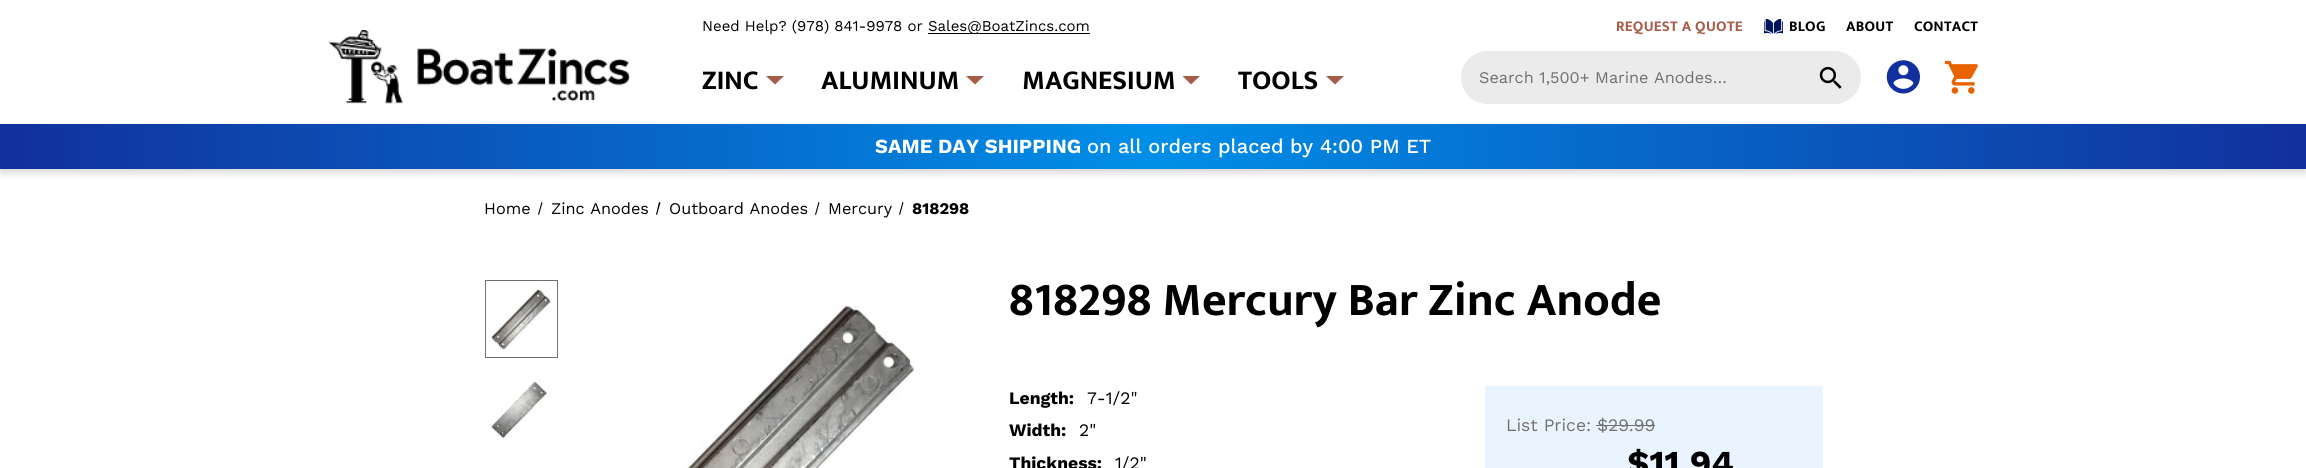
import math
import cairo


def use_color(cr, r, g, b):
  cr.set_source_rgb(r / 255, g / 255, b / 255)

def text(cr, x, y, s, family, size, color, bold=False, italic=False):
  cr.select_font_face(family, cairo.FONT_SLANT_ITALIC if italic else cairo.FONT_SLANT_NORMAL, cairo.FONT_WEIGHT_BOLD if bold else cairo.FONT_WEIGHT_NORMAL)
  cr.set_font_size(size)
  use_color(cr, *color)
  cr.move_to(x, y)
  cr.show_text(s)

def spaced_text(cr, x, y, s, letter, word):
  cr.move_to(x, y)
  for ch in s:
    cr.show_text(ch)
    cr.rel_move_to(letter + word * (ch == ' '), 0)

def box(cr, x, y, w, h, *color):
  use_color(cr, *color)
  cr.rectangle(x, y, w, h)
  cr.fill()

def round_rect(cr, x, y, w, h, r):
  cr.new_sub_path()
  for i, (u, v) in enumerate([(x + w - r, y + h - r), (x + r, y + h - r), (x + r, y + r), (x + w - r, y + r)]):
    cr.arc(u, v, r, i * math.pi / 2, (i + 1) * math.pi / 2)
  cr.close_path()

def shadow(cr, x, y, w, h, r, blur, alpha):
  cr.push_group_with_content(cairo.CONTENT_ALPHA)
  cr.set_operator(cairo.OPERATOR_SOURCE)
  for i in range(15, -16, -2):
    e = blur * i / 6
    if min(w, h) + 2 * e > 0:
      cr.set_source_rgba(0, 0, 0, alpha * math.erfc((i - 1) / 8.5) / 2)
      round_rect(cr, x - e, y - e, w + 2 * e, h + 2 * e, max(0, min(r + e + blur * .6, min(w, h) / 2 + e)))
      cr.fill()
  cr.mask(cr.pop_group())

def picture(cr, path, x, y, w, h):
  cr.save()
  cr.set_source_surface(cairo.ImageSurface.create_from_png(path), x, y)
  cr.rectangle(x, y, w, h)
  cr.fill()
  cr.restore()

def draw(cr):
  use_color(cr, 255, 255, 255)
  cr.paint()
  picture(cr, "img_01.png", 328, 30, 302, 74)
  box(cr, 928, 33, 162, 1, 0, 0, 0)
  use_color(cr, 167, 92, 71)
  cr.new_path()
  cr.move_to(775, 84.5)
  cr.line_to(766, 76)
  cr.line_to(784, 76)
  cr.close_path()
  cr.fill()
  cr.new_path()
  cr.move_to(975, 84.5)
  cr.line_to(966, 76)
  cr.line_to(984, 76)
  cr.close_path()
  cr.fill()
  cr.new_path()
  cr.move_to(1191, 84.5)
  cr.line_to(1182.5, 76)
  cr.line_to(1200, 76)
  cr.close_path()
  cr.fill()
  cr.new_path()
  cr.move_to(1335, 84.5)
  cr.line_to(1326, 76)
  cr.line_to(1344, 76)
  cr.close_path()
  cr.fill()
  picture(cr, "img_02.png", 1764, 19, 19, 15)
  use_color(cr, 235, 235, 235)
  round_rect(cr, 1461, 51, 400, 53, 26.5)
  cr.fill()
  picture(cr, "img_03.png", 1819, 66, 23, 23)
  picture(cr, "img_04.png", 1886, 60, 34, 34)
  picture(cr, "img_05.png", 1945, 60, 33, 34)
  use_color(cr, 0, 0, 0)
  shadow(cr, 0, 128, 2306, 45, 0, 4, 0.16)
  gradient = cairo.LinearGradient(0, 146, 2306, 146)
  gradient.add_color_stop_rgba(0, 0.067, 0.188, 0.616, 1)
  gradient.add_color_stop_rgba(0.5, 0, 0.561, 0.91, 1)
  gradient.add_color_stop_rgba(1, 0.067, 0.188, 0.616, 1)
  cr.set_source(gradient)
  cr.rectangle(0, 124, 2306, 45)
  cr.fill()
  use_color(cr, 0, 0, 0)
  cr.new_path()
  cr.move_to(541.5, 202)
  cr.line_to(542.5, 202.5)
  cr.line_to(539, 215)
  cr.line_to(538, 214.5)
  cr.close_path()
  cr.fill()
  cr.new_path()
  cr.move_to(659, 202)
  cr.line_to(660.5, 202.5)
  cr.line_to(657, 215)
  cr.line_to(656, 214.5)
  cr.close_path()
  cr.fill()
  cr.new_path()
  cr.move_to(818.5, 202)
  cr.line_to(819.5, 202.5)
  cr.line_to(816, 215)
  cr.line_to(815, 214.5)
  cr.close_path()
  cr.fill()
  cr.new_path()
  cr.move_to(902.5, 202)
  cr.line_to(903.5, 202.5)
  cr.line_to(900, 215)
  cr.line_to(899, 214.5)
  cr.close_path()
  cr.fill()
  cr.rectangle(485.5, 280.5, 72, 77)
  use_color(cr, 112, 112, 112)
  cr.set_line_width(1)
  cr.stroke()
  picture(cr, "img_06.png", 489, 286, 63, 64)
  picture(cr, "img_07.png", 489, 381, 58, 62)
  picture(cr, "img_08.png", 685, 303, 231, 165)
  box(cr, 1485, 386, 338, 82, 234, 244, 255)
  box(cr, 1596, 425, 59, 1, 112, 112, 112)
  text(cr, 702, 31, "Need Help? (978) 841-9978 or", "Work Sans", 15, (0, 0, 0))
  text(cr, 928, 31, "Sales@BoatZincs.com", "Work Sans", 15, (0, 0, 0))
  text(cr, 702, 89, "ZINC", "Mukta", 27.5, (0, 0, 0), bold=True)
  text(cr, 821, 89, "ALUMINUM", "Mukta", 27.5, (0, 0, 0), bold=True)
  text(cr, 1022, 89, "MAGNESIUM", "Mukta", 27.5, (0, 0, 0), bold=True)
  text(cr, 1238, 89, "TOOLS", "Mukta", 27.5, (0, 0, 0), bold=True)
  cr.set_font_size(15)
  use_color(cr, 167, 92, 71)
  spaced_text(cr, 1616, 31, "REQUEST A QUOTE", 0.25, 0)
  use_color(cr, 0, 0, 0)
  spaced_text(cr, 1789, 31, "BLOG", 0.25, 0)
  spaced_text(cr, 1846, 31, "ABOUT", 0.25, 0)
  spaced_text(cr, 1914, 31, "CONTACT", 0.25, 0)
  text(cr, 1479, 83, "Search 1,500+ Marine Anodes…", "Work Sans", 16.25, (112, 112, 112))
  text(cr, 875, 153, "SAME DAY SHIPPING", "Work Sans", 20, (255, 255, 255), bold=True)
  text(cr, 1087, 153, "on all orders placed by 4:00 PM ET", "Work Sans Medium", 20, (255, 255, 255))
  text(cr, 484, 214, "Home", "Work Sans", 16.25, (0, 0, 0))
  text(cr, 551, 214, "Zinc Anodes", "Work Sans", 16.25, (0, 0, 0))
  text(cr, 669, 214, "Outboard Anodes", "Work Sans", 16.25, (0, 0, 0))
  text(cr, 828, 214, "Mercury", "Work Sans", 16.25, (0, 0, 0))
  text(cr, 912, 214, "818298", "Work Sans", 16.25, (0, 0, 0), bold=True)
  text(cr, 1009, 315, "818298 Mercury Bar Zinc Anode", "Mukta", 47.5, (0, 0, 0), bold=True)
  text(cr, 1009, 404, "Length:", "Work Sans", 17.5, (0, 0, 0), bold=True)
  text(cr, 1087, 404, "7-1/2\"", "Work Sans", 17.5, (0, 0, 0))
  text(cr, 1009, 436, "Width:", "Work Sans", 17.5, (0, 0, 0), bold=True)
  text(cr, 1079, 436, "2\"", "Work Sans", 17.5, (0, 0, 0))
  text(cr, 1009, 469, "Thickness:", "Work Sans", 17.5, (0, 0, 0), bold=True)
  text(cr, 1115, 469, "1/2\"", "Work Sans", 17.5, (0, 0, 0))
  text(cr, 1506, 431, "List Price: $29.99", "Work Sans", 17.5, (112, 112, 112))
  text(cr, 1627, 475, "$11.94", "Work Sans", 35, (0, 0, 0), bold=True)


surface = cairo.ImageSurface(cairo.FORMAT_RGB24, 2306, 468)
cr = cairo.Context(surface)
options = cairo.FontOptions()
options.set_hint_metrics(cairo.HINT_METRICS_OFF)
options.set_hint_style(cairo.HINT_STYLE_NONE)
cr.set_font_options(options)
cr.set_miter_limit(4)
draw(cr)
surface.write_to_png("out.png")
